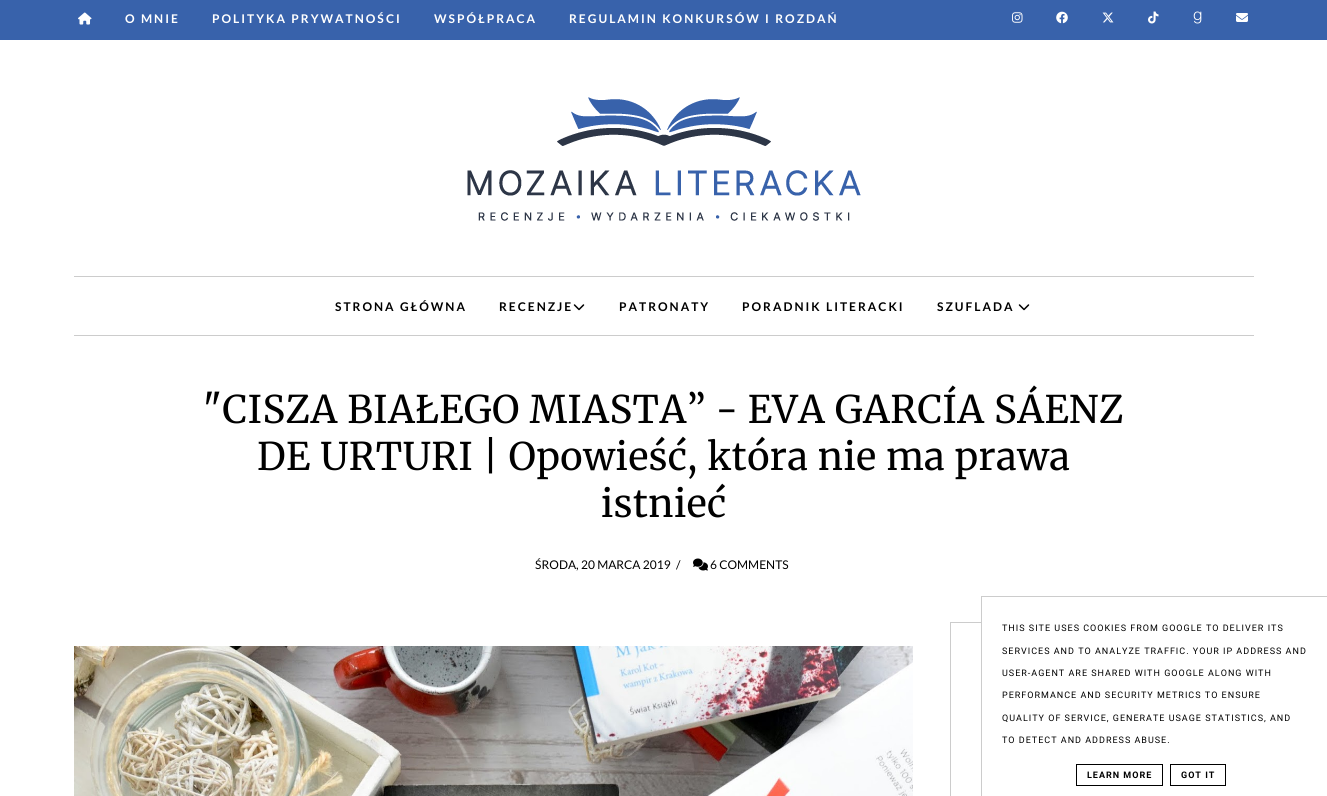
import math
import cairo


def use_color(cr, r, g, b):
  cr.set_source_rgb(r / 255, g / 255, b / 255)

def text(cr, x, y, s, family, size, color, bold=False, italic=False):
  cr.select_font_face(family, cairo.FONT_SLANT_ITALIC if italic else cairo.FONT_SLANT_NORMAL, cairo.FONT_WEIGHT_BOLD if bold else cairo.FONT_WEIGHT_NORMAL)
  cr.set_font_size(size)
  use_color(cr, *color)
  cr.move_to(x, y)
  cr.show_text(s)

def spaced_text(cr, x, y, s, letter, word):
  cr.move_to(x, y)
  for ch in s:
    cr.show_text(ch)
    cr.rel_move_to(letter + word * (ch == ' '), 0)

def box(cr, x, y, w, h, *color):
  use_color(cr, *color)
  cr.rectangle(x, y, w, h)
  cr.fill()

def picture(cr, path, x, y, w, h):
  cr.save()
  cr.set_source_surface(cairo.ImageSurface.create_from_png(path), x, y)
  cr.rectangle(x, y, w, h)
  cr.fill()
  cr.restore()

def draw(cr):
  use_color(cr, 255, 255, 255)
  cr.paint()
  box(cr, 0, 0, 1327, 40, 56, 98, 171)
  picture(cr, "img_01.png", 78, 12, 14, 13)
  picture(cr, "img_02.png", 1012, 12, 11, 11)
  picture(cr, "img_03.png", 1056, 11, 12, 13)
  picture(cr, "img_04.png", 1102, 12, 12, 11)
  picture(cr, "img_05.png", 1148, 11, 11, 13)
  picture(cr, "img_06.png", 1193, 11, 9, 13)
  picture(cr, "img_07.png", 1236, 13, 12, 9)
  picture(cr, "img_08.png", 467, 97, 394, 124)
  box(cr, 74, 276, 1180, 1, 204, 204, 204)
  box(cr, 74, 335, 1180, 1, 204, 204, 204)
  picture(cr, "img_09.png", 573, 304, 12, 7)
  picture(cr, "img_09.png", 1018, 304, 12, 7)
  picture(cr, "img_10.png", 693, 558, 15, 13)
  picture(cr, "img_11.png", 74, 646, 839, 150)
  cr.rectangle(950.5, 622.5, 303, 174)
  cr.set_line_width(1)
  cr.stroke()
  box(cr, 982, 622, 272, 174, 255, 255, 255)
  box(cr, 981, 596, 346, 1, 204, 204, 204)
  box(cr, 981, 596, 1, 200, 204, 204, 204)
  cr.rectangle(1076.5, 764.5, 86, 21)
  use_color(cr, 0, 0, 0)
  cr.stroke()
  cr.rectangle(1170.5, 764.5, 55, 21)
  cr.stroke()
  cr.select_font_face("Lato", cairo.FONT_SLANT_NORMAL, cairo.FONT_WEIGHT_BOLD)
  cr.set_font_size(12)
  use_color(cr, 255, 255, 255)
  spaced_text(cr, 125, 23, "O MNIE", 2, 0)
  spaced_text(cr, 212, 23, "POLITYKA PRYWATNOŚCI", 2, 0)
  spaced_text(cr, 434, 23, "WSPÓŁPRACA", 2, 0)
  spaced_text(cr, 569, 23, "REGULAMIN KONKURSÓW I ROZDAŃ", 2, 0)
  use_color(cr, 0, 0, 0)
  spaced_text(cr, 335, 311, "STRONA GŁÓWNA", 2, 0)
  spaced_text(cr, 499, 311, "RECENZJE", 2, 0)
  spaced_text(cr, 619, 311, "PATRONATY", 2, 0)
  spaced_text(cr, 742, 311, "PORADNIK LITERACKI", 2, 0)
  spaced_text(cr, 937, 311, "SZUFLADA", 2, 0)
  cr.select_font_face("Merriweather")
  cr.set_font_size(38)
  spaced_text(cr, 203, 423, "\"CISZA BIAŁEGO MIASTA” - EVA GARCÍA SÁENZ", 0.5, 0)
  spaced_text(cr, 257, 470, "DE URTURI | Opowieść, która nie ma prawa", 0.5, 0)
  spaced_text(cr, 601, 517, "istnieć", 0.5, 0)
  text(cr, 535, 569, "ŚRODA, 20 MARCA 2019", "Lato", 12, (0, 0, 0))
  text(cr, 676, 569, "/", "Lato", 12, (0, 0, 0))
  text(cr, 710, 569, "6 COMMENTS", "Lato", 12, (0, 0, 0))
  cr.select_font_face("Roboto")
  cr.set_font_size(9)
  spaced_text(cr, 1002, 631, "THIS SITE USES COOKIES FROM GOOGLE TO DELIVER ITS", 1, 0)
  spaced_text(cr, 1002, 654, "SERVICES AND TO ANALYZE TRAFFIC. YOUR IP ADDRESS AND", 1, 0)
  spaced_text(cr, 1002, 676, "USER-AGENT ARE SHARED WITH GOOGLE ALONG WITH", 1, 0)
  spaced_text(cr, 1002, 698, "PERFORMANCE AND SECURITY METRICS TO ENSURE", 1, 0)
  spaced_text(cr, 1002, 721, "QUALITY OF SERVICE, GENERATE USAGE STATISTICS, AND", 1, 0)
  spaced_text(cr, 1002, 743, "TO DETECT AND ADDRESS ABUSE.", 1, 0)
  cr.select_font_face("Roboto", cairo.FONT_SLANT_NORMAL, cairo.FONT_WEIGHT_BOLD)
  spaced_text(cr, 1087, 778, "LEARN MORE", 1, 0)
  spaced_text(cr, 1181, 778, "GOT IT", 1, 0)


surface = cairo.ImageSurface(cairo.FORMAT_RGB24, 1327, 796)
cr = cairo.Context(surface)
options = cairo.FontOptions()
options.set_hint_metrics(cairo.HINT_METRICS_OFF)
options.set_hint_style(cairo.HINT_STYLE_NONE)
cr.set_font_options(options)
cr.set_miter_limit(4)
draw(cr)
surface.write_to_png("out.png")
